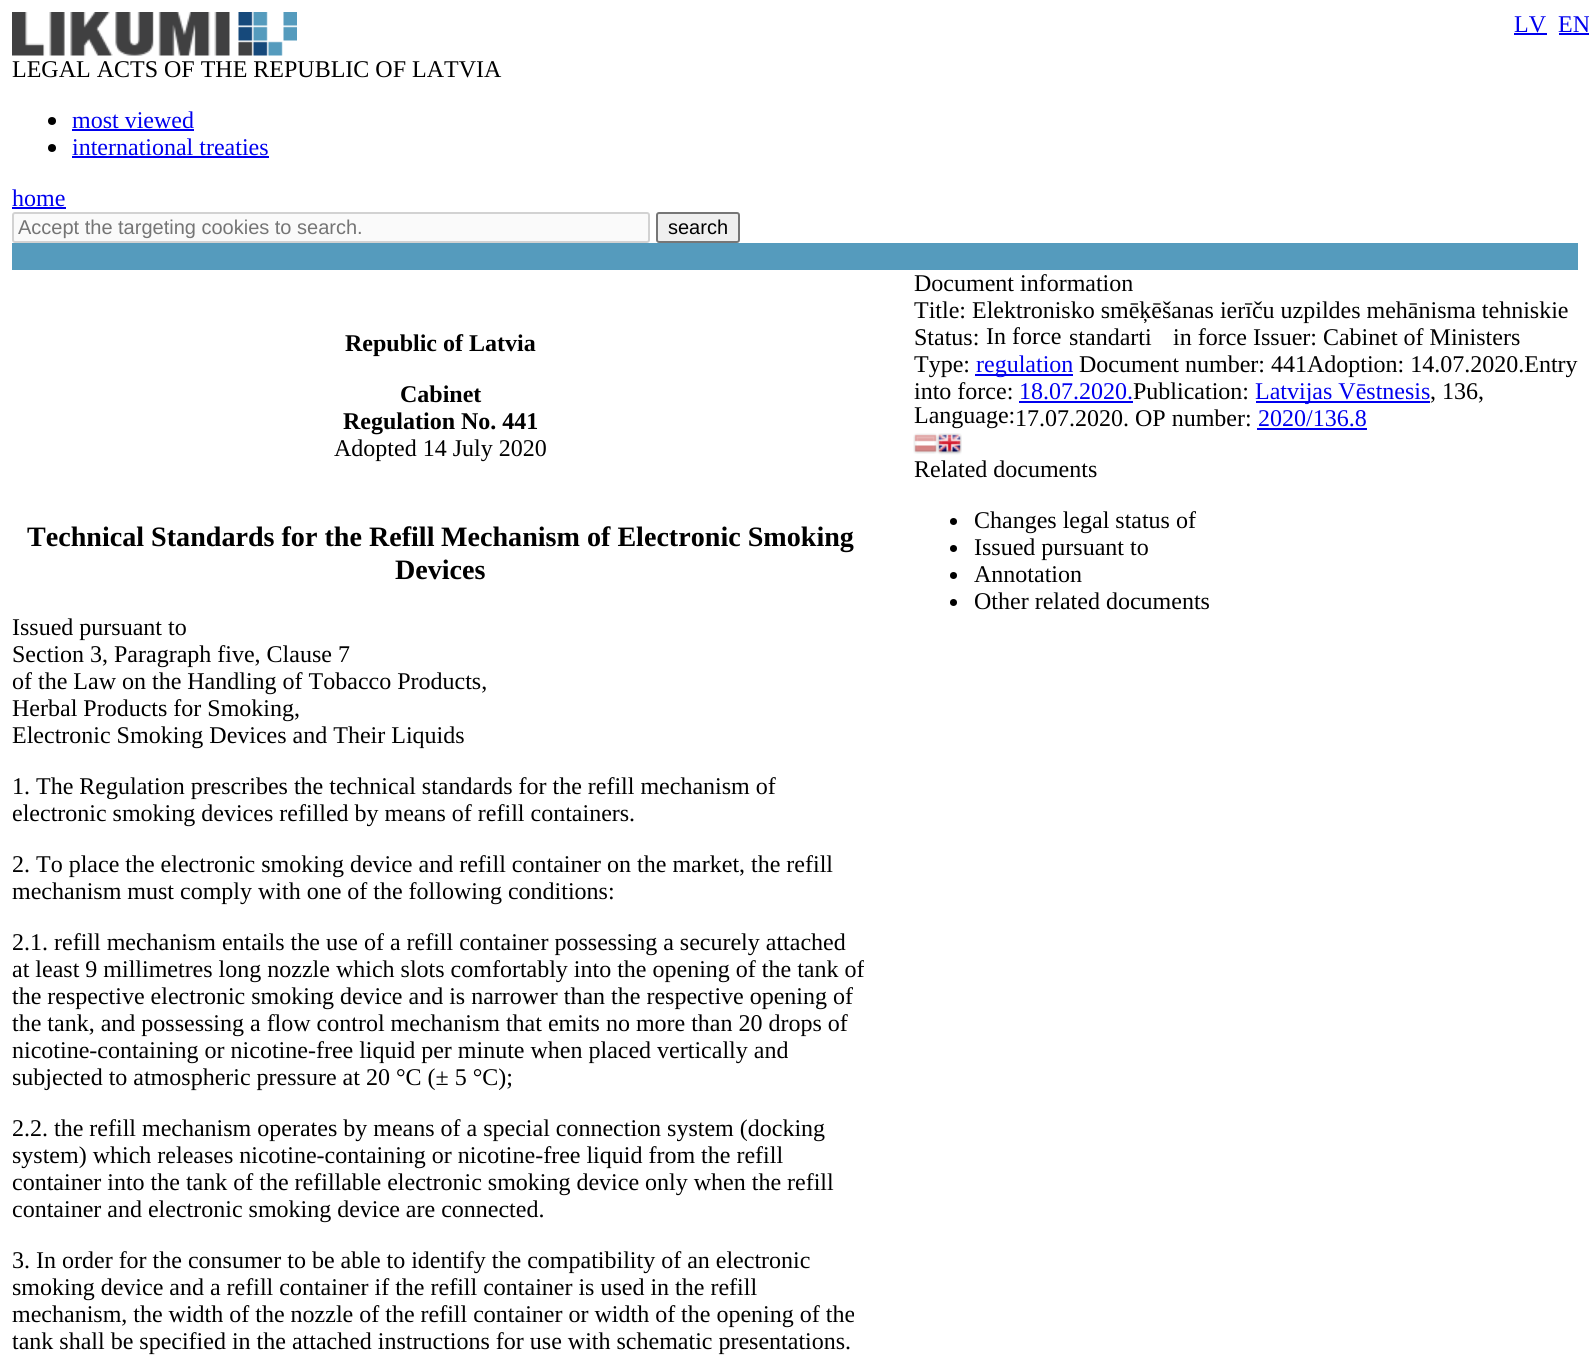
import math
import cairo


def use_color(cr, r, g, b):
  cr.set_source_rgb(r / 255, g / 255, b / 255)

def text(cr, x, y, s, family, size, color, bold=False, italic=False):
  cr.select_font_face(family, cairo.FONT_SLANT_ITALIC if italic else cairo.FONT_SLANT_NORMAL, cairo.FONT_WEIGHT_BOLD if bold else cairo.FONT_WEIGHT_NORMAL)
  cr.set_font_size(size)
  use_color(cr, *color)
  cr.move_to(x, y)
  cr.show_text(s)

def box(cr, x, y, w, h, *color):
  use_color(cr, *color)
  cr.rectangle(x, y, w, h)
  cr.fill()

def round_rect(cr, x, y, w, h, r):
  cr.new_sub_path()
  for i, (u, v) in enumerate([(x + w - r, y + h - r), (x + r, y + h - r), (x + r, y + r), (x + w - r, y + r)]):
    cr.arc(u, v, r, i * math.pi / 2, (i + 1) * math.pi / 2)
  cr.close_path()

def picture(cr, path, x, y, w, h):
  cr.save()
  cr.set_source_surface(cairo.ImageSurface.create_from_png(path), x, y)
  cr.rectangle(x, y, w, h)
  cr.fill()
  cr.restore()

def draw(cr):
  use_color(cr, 255, 255, 255)
  cr.paint()
  picture(cr, "img_01.png", 12, 12, 285, 44)
  box(cr, 1514, 33, 33, 2, 0, 0, 238)
  box(cr, 1559, 33, 30, 2, 0, 0, 238)
  use_color(cr, 0, 0, 0)
  cr.arc(52, 121, 4, 0, 2 * math.pi)
  cr.fill()
  box(cr, 72, 129, 122, 2, 0, 0, 238)
  use_color(cr, 0, 0, 0)
  cr.arc(52, 148, 4, 0, 2 * math.pi)
  cr.fill()
  box(cr, 72, 156, 197, 2, 0, 0, 238)
  box(cr, 12, 207, 54, 2, 0, 0, 238)
  use_color(cr, 250, 250, 250)
  round_rect(cr, 13, 213, 636, 29, 2)
  cr.fill_preserve()
  use_color(cr, 210, 210, 210)
  cr.stroke()
  use_color(cr, 239, 239, 239)
  round_rect(cr, 657, 213, 82, 29, 2)
  cr.fill_preserve()
  use_color(cr, 118, 118, 118)
  cr.stroke()
  box(cr, 12, 243, 1566, 27, 85, 155, 189)
  box(cr, 975, 374, 98, 2, 0, 0, 238)
  box(cr, 1019, 401, 114, 2, 0, 0, 238)
  box(cr, 1256, 401, 174, 2, 0, 0, 238)
  picture(cr, "img_03.png", 937, 433, 25, 22)
  picture(cr, "img_02.png", 913, 433, 25, 21)
  box(cr, 1257, 428, 110, 2, 0, 0, 238)
  use_color(cr, 0, 0, 0)
  cr.arc(953.5, 521.5, 3.5, 0, 2 * math.pi)
  cr.fill()
  cr.arc(953.5, 548.5, 3.5, 0, 2 * math.pi)
  cr.fill()
  cr.arc(953.5, 575.5, 3.5, 0, 2 * math.pi)
  cr.fill()
  cr.arc(953.5, 602.5, 3.5, 0, 2 * math.pi)
  cr.fill()
  text(cr, 1514, 32, "LV", "Liberation Serif", 24, (0, 0, 238))
  text(cr, 1558, 32, "EN", "Liberation Serif", 24, (0, 0, 238))
  text(cr, 12, 77, "LEGAL ACTS OF THE REPUBLIC OF LATVIA", "Liberation Serif", 24, (0, 0, 0))
  text(cr, 72, 128, "most viewed", "Liberation Serif", 24, (0, 0, 238))
  text(cr, 72, 155, "international treaties", "Liberation Serif", 24, (0, 0, 238))
  text(cr, 12, 206, "home", "Liberation Serif", 24, (0, 0, 238))
  text(cr, 18, 234, "Accept the targeting cookies to search.", "Liberation Sans", 20, (117, 117, 117))
  text(cr, 668, 234, "search", "Liberation Sans", 20, (0, 0, 0))
  text(cr, 345, 351, "Republic of Latvia", "Liberation Serif", 24, (0, 0, 0), bold=True)
  text(cr, 400, 402, "Cabinet", "Liberation Serif", 24, (0, 0, 0), bold=True)
  text(cr, 343, 429, "Regulation No. 441", "Liberation Serif", 24, (0, 0, 0), bold=True)
  text(cr, 334, 456, "Adopted 14 July 2020", "Liberation Serif", 24, (0, 0, 0))
  text(cr, 27, 546, "Technical Standards for the Refill", "Liberation Serif", 28.1, (0, 0, 0), bold=True)
  text(cr, 441, 546, "Mechanism of Electronic Smoking", "Liberation Serif", 28.1, (0, 0, 0), bold=True)
  text(cr, 395, 579, "Devices", "Liberation Serif", 28.1, (0, 0, 0), bold=True)
  text(cr, 12, 635, "Issued pursuant to", "Liberation Serif", 24, (0, 0, 0))
  text(cr, 12, 662, "Section 3, Paragraph five, Clause 7", "Liberation Serif", 24, (0, 0, 0))
  text(cr, 12, 689, "of the Law on the Handling of Tobacco Products,", "Liberation Serif", 24, (0, 0, 0))
  text(cr, 12, 716, "Herbal Products for Smoking,", "Liberation Serif", 24, (0, 0, 0))
  text(cr, 12, 743, "Electronic Smoking Devices and Their Liquids", "Liberation Serif", 24, (0, 0, 0))
  text(cr, 12, 794, "1. The Regulation prescribes the technical standards for the refill mechanism of", "Liberation Serif", 24, (0, 0, 0))
  text(cr, 12, 821, "electronic smoking devices refilled by means of refill containers.", "Liberation Serif", 24, (0, 0, 0))
  text(cr, 12, 872, "2. To place the electronic smoking device and refill container on the market, the refill", "Liberation Serif", 24, (0, 0, 0))
  text(cr, 12, 899, "mechanism must comply with one of the following conditions:", "Liberation Serif", 24, (0, 0, 0))
  text(cr, 12, 950, "2.1. refill mechanism entails the use of a refill container possessing a securely attached", "Liberation Serif", 24, (0, 0, 0))
  text(cr, 12, 977, "at least 9 millimetres long nozzle which slots comfortably into the opening of the tank of", "Liberation Serif", 24, (0, 0, 0))
  text(cr, 12, 1004, "the respective electronic smoking device and is narrower than the respective opening of", "Liberation Serif", 24, (0, 0, 0))
  text(cr, 12, 1031, "the tank, and possessing a flow control mechanism that emits no more than 20 drops of", "Liberation Serif", 24, (0, 0, 0))
  text(cr, 12, 1058, "nicotine-containing or nicotine-free liquid per minute when placed vertically and", "Liberation Serif", 24, (0, 0, 0))
  text(cr, 12, 1085, "subjected to atmospheric pressure at 20 °C (± 5 °C);", "Liberation Serif", 24, (0, 0, 0))
  text(cr, 12, 1136, "2.2. the refill mechanism operates by means of a special connection system (docking", "Liberation Serif", 24, (0, 0, 0))
  text(cr, 12, 1163, "system) which releases nicotine-containing or nicotine-free liquid from the refill", "Liberation Serif", 24, (0, 0, 0))
  text(cr, 12, 1190, "container into the tank of the refillable electronic smoking device only when the refill", "Liberation Serif", 24, (0, 0, 0))
  text(cr, 12, 1217, "container and electronic smoking device are connected.", "Liberation Serif", 24, (0, 0, 0))
  text(cr, 12, 1268, "3. In order for the consumer to be able to identify the compatibility of an electronic", "Liberation Serif", 24, (0, 0, 0))
  text(cr, 12, 1295, "smoking device and a refill container if the refill container is used in the refill", "Liberation Serif", 24, (0, 0, 0))
  text(cr, 12, 1322, "mechanism, the width of the nozzle of the refill container or width of the opening of the", "Liberation Serif", 24, (0, 0, 0))
  text(cr, 12, 1349, "tank shall be specified in the attached instructions for use with schematic presentations.", "Liberation Serif", 24, (0, 0, 0))
  text(cr, 914, 291, "Document information", "Liberation Serif", 24, (0, 0, 0))
  text(cr, 914, 318, "Title: Elektronisko smēķēšanas ierīču uzpildes mehānisma tehniskie", "Liberation Serif", 24, (0, 0, 0))
  text(cr, 914, 345, "Status:", "Liberation Serif", 24, (0, 0, 0))
  text(cr, 986, 344, "In force", "Liberation Serif", 24, (0, 0, 0))
  text(cr, 1173, 345, "in force Issuer: Cabinet of Ministers", "Liberation Serif", 24, (0, 0, 0))
  text(cr, 1069, 345, "standarti", "Liberation Serif", 24, (0, 0, 0))
  text(cr, 914, 372, "Type:", "Liberation Serif", 24, (0, 0, 0))
  text(cr, 976, 372, "regulation", "Liberation Serif", 24, (0, 0, 238))
  text(cr, 1079, 372, "Document number: 441Adoption: 14.07.2020.Entry", "Liberation Serif", 24, (0, 0, 0))
  text(cr, 914, 399, "into force:", "Liberation Serif", 24, (0, 0, 0))
  text(cr, 1019, 399, "18.07.2020.", "Liberation Serif", 24, (0, 0, 238))
  text(cr, 1133, 399, "Publication:", "Liberation Serif", 24, (0, 0, 0))
  text(cr, 1255, 399, "Latvijas Vēstnesis", "Liberation Serif", 24, (0, 0, 238))
  text(cr, 1430, 399, ", 136,", "Liberation Serif", 24, (0, 0, 0))
  text(cr, 914, 423, "Language:", "Liberation Serif", 24, (0, 0, 0))
  text(cr, 1015, 426, "17.07.2020. OP number:", "Liberation Serif", 24, (0, 0, 0))
  text(cr, 1258, 426, "2020/136.8", "Liberation Serif", 24, (0, 0, 238))
  text(cr, 914, 477, "Related documents", "Liberation Serif", 24, (0, 0, 0))
  text(cr, 974, 528, "Changes legal status of", "Liberation Serif", 24, (0, 0, 0))
  text(cr, 974, 555, "Issued pursuant to", "Liberation Serif", 24, (0, 0, 0))
  text(cr, 974, 582, "Annotation", "Liberation Serif", 24, (0, 0, 0))
  text(cr, 974, 609, "Other related documents", "Liberation Serif", 24, (0, 0, 0))


surface = cairo.ImageSurface(cairo.FORMAT_RGB24, 1589, 1371)
cr = cairo.Context(surface)
options = cairo.FontOptions()
options.set_hint_metrics(cairo.HINT_METRICS_OFF)
options.set_hint_style(cairo.HINT_STYLE_NONE)
cr.set_font_options(options)
cr.set_miter_limit(4)
draw(cr)
surface.write_to_png("out.png")
